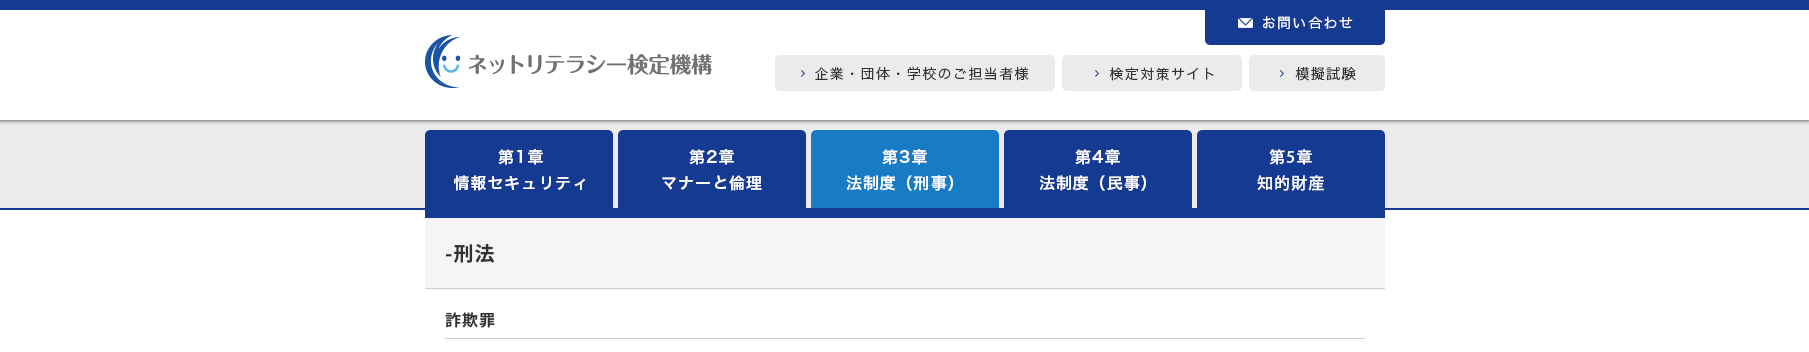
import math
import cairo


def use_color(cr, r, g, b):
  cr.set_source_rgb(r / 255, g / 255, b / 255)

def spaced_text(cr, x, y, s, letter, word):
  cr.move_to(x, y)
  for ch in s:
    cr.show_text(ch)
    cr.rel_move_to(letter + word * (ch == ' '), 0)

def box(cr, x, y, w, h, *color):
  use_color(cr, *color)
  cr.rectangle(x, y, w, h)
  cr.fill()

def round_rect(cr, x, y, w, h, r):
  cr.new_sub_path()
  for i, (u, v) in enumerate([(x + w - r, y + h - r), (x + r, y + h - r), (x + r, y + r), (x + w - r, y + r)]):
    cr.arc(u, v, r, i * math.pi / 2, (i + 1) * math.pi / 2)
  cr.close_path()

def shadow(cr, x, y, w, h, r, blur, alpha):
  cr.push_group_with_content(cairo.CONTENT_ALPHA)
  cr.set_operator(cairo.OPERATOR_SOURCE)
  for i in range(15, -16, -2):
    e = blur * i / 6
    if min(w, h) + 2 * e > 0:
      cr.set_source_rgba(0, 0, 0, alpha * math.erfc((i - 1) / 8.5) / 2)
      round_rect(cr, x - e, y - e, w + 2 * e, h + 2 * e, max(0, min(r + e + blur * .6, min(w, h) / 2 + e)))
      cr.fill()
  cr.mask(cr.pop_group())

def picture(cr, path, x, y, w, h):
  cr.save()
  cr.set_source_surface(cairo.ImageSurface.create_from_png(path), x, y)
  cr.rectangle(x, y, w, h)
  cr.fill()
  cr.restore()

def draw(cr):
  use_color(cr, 255, 255, 255)
  cr.paint()
  box(cr, 0, 120, 1809, 88, 235, 235, 235)
  cr.save()
  cr.rectangle(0, 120, 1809, 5)
  cr.clip()
  use_color(cr, 0, 0, 0)
  shadow(cr, 0, 0, 1809, 120, 0, 2.5, 0.8)
  cr.restore()
  box(cr, 0, 0, 1809, 10, 21, 58, 145)
  picture(cr, "img_01.png", 425, 35, 287, 53)
  picture(cr, "img_02.png", 1205, 10, 180, 35)
  picture(cr, "img_03.png", 775, 55, 280, 36)
  picture(cr, "img_04.png", 1062, 55, 180, 36)
  picture(cr, "img_05.png", 1249, 55, 136, 36)
  box(cr, 0, 208, 1809, 2, 21, 58, 145)
  picture(cr, "img_06.png", 425, 130, 188, 78)
  picture(cr, "img_07.png", 618, 130, 188, 78)
  picture(cr, "img_08.png", 811, 130, 188, 78)
  picture(cr, "img_09.png", 1004, 130, 188, 78)
  picture(cr, "img_10.png", 1197, 130, 188, 78)
  box(cr, 425, 218, 960, 70, 245, 245, 245)
  box(cr, 425, 210, 960, 8, 21, 58, 145)
  box(cr, 425, 288, 960, 1, 204, 204, 204)
  box(cr, 445, 338, 920, 1, 204, 204, 204)
  cr.select_font_face("Noto Sans JP", cairo.FONT_SLANT_NORMAL, cairo.FONT_WEIGHT_BOLD)
  cr.set_font_size(20)
  use_color(cr, 51, 51, 51)
  spaced_text(cr, 445, 261, "-刑法", 1, 0)
  cr.set_font_size(16)
  spaced_text(cr, 445, 326, "詐欺罪", 1, 0)


surface = cairo.ImageSurface(cairo.FORMAT_RGB24, 1809, 352)
cr = cairo.Context(surface)
options = cairo.FontOptions()
options.set_hint_metrics(cairo.HINT_METRICS_OFF)
options.set_hint_style(cairo.HINT_STYLE_NONE)
cr.set_font_options(options)
cr.set_miter_limit(4)
draw(cr)
surface.write_to_png("out.png")
